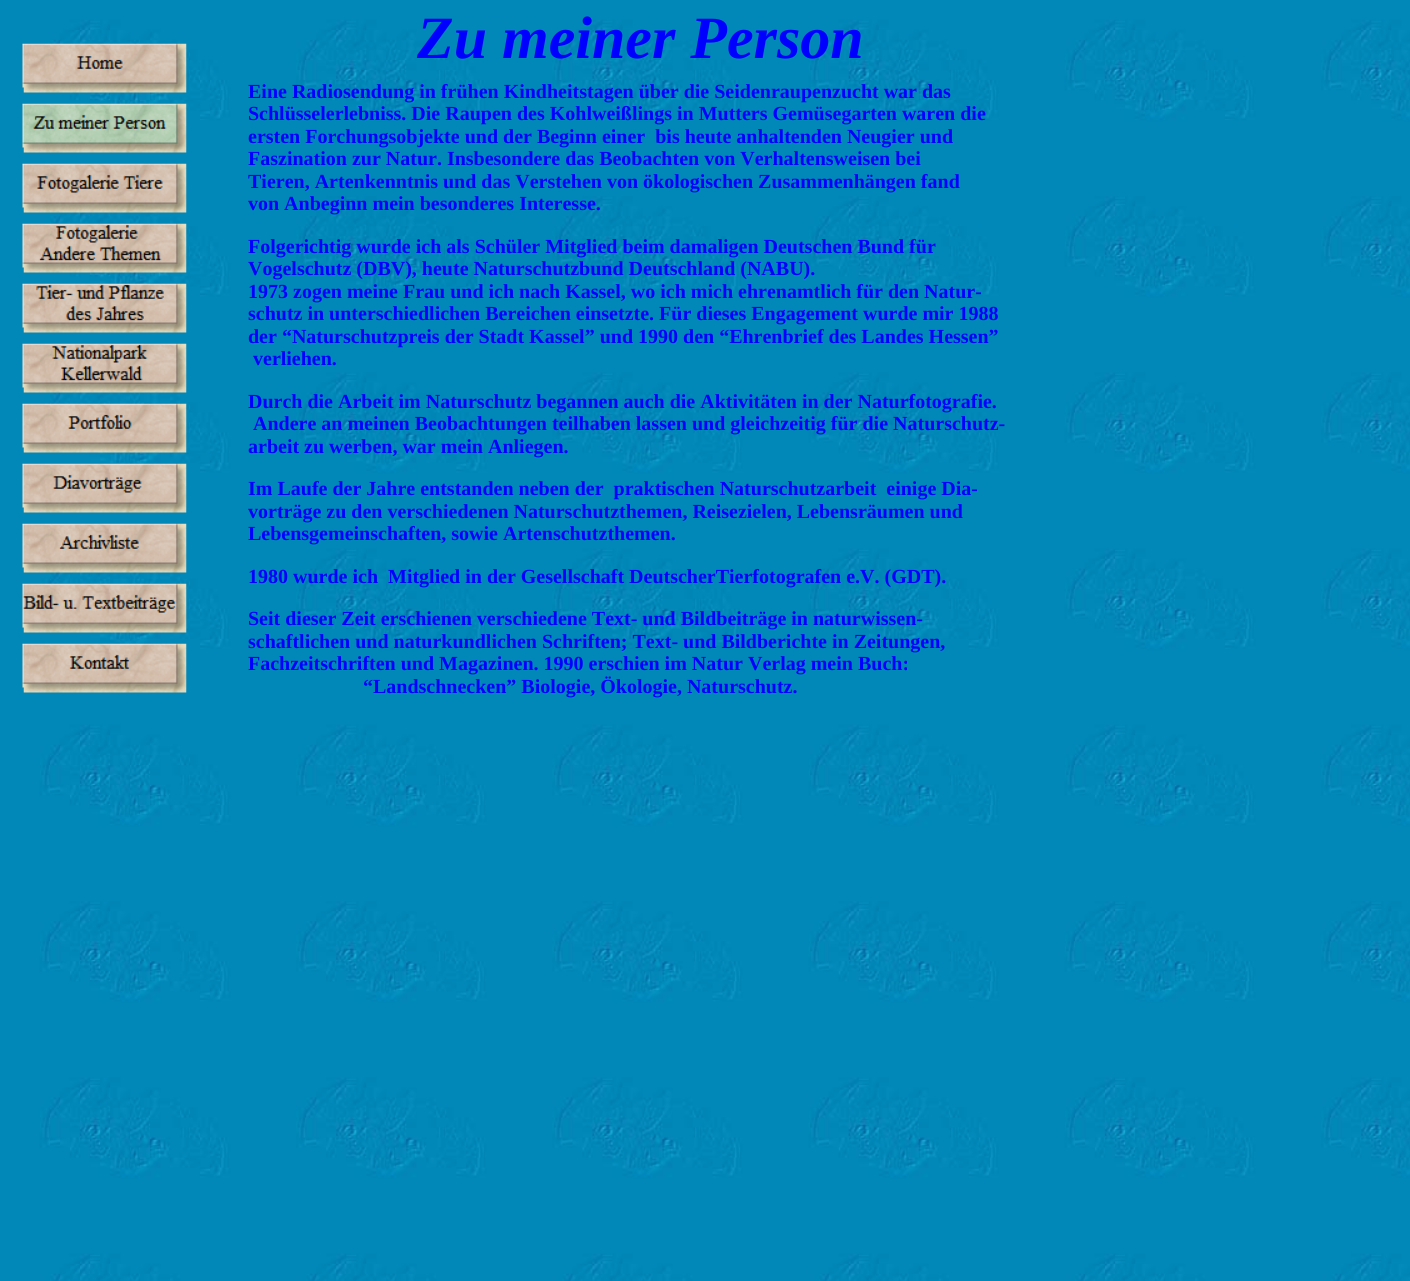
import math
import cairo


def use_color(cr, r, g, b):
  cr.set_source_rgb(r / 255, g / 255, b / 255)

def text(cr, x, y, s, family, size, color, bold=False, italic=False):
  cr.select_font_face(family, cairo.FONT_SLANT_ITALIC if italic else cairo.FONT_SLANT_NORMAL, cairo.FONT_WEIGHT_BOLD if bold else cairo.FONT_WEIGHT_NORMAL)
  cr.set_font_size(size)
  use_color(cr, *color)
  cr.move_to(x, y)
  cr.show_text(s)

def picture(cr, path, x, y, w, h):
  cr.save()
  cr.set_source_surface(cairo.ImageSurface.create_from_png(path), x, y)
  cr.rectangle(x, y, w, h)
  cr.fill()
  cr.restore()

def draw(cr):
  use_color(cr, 255, 255, 255)
  cr.paint()
  picture(cr, "img_01.png", 0, 0, 1410, 1281)
  picture(cr, "img_02.png", 22, 43, 165, 50)
  picture(cr, "img_03.png", 22, 103, 165, 50)
  picture(cr, "img_04.png", 22, 163, 165, 50)
  picture(cr, "img_05.png", 22, 223, 165, 50)
  picture(cr, "img_06.png", 22, 283, 165, 50)
  picture(cr, "img_07.png", 22, 343, 165, 50)
  picture(cr, "img_08.png", 22, 403, 165, 50)
  picture(cr, "img_09.png", 22, 463, 165, 50)
  picture(cr, "img_10.png", 22, 523, 165, 50)
  picture(cr, "img_11.png", 22, 583, 165, 50)
  picture(cr, "img_12.png", 22, 643, 165, 50)
  text(cr, 417, 58, "Zu meiner Person", "Liberation Serif", 60, (0, 0, 255), bold=True, italic=True)
  text(cr, 248, 98, "Eine Radiosendung in frühen Kindheitstagen über die Seidenraupenzucht war das", "Liberation Serif", 20, (0, 0, 255), bold=True)
  text(cr, 248, 120, "Schlüsselerlebniss. Die Raupen des Kohlweißlings in Mutters Gemüsegarten waren die", "Liberation Serif", 20, (0, 0, 255), bold=True)
  text(cr, 248, 143, "ersten Forchungsobjekte und der Beginn einer  bis heute anhaltenden Neugier und", "Liberation Serif", 20, (0, 0, 255), bold=True)
  text(cr, 248, 165, "Faszination zur Natur. Insbesondere das Beobachten von Verhaltensweisen bei", "Liberation Serif", 20, (0, 0, 255), bold=True)
  text(cr, 248, 188, "Tieren, Artenkenntnis und das Verstehen von ökologischen Zusammenhängen fand", "Liberation Serif", 20, (0, 0, 255), bold=True)
  text(cr, 248, 210, "von Anbeginn mein besonderes Interesse.", "Liberation Serif", 20, (0, 0, 255), bold=True)
  text(cr, 248, 253, "Folgerichtig wurde ich als Schüler Mitglied beim damaligen Deutschen Bund für", "Liberation Serif", 20, (0, 0, 255), bold=True)
  text(cr, 248, 275, "Vogelschutz (DBV), heute Naturschutzbund Deutschland (NABU).", "Liberation Serif", 20, (0, 0, 255), bold=True)
  text(cr, 248, 298, "1973 zogen meine Frau und ich nach Kassel, wo ich mich ehrenamtlich für den Natur-", "Liberation Serif", 20, (0, 0, 255), bold=True)
  text(cr, 248, 320, "schutz in unterschiedlichen Bereichen einsetzte. Für dieses Engagement wurde mir 1988", "Liberation Serif", 20, (0, 0, 255), bold=True)
  text(cr, 248, 343, "der “Naturschutzpreis der Stadt Kassel” und 1990 den “Ehrenbrief des Landes Hessen”", "Liberation Serif", 20, (0, 0, 255), bold=True)
  text(cr, 253, 365, "verliehen.", "Liberation Serif", 20, (0, 0, 255), bold=True)
  text(cr, 248, 408, "Durch die Arbeit im Naturschutz begannen auch die Aktivitäten in der Naturfotografie.", "Liberation Serif", 20, (0, 0, 255), bold=True)
  text(cr, 253, 430, "Andere an meinen Beobachtungen teilhaben lassen und gleichzeitig für die Naturschutz-", "Liberation Serif", 20, (0, 0, 255), bold=True)
  text(cr, 248, 453, "arbeit zu werben, war mein Anliegen.", "Liberation Serif", 20, (0, 0, 255), bold=True)
  text(cr, 248, 495, "Im Laufe der Jahre entstanden neben der  praktischen Naturschutzarbeit  einige Dia-", "Liberation Serif", 20, (0, 0, 255), bold=True)
  text(cr, 248, 518, "vorträge zu den verschiedenen Naturschutzthemen, Reisezielen, Lebensräumen und", "Liberation Serif", 20, (0, 0, 255), bold=True)
  text(cr, 248, 540, "Lebensgemeinschaften, sowie Artenschutzthemen.", "Liberation Serif", 20, (0, 0, 255), bold=True)
  text(cr, 248, 583, "1980 wurde ich  Mitglied in der Gesellschaft DeutscherTierfotografen e.V. (GDT).", "Liberation Serif", 20, (0, 0, 255), bold=True)
  text(cr, 248, 625, "Seit dieser Zeit erschienen verschiedene Text- und Bildbeiträge in naturwissen-", "Liberation Serif", 20, (0, 0, 255), bold=True)
  text(cr, 248, 648, "schaftlichen und naturkundlichen Schriften; Text- und Bildberichte in Zeitungen,", "Liberation Serif", 20, (0, 0, 255), bold=True)
  text(cr, 248, 670, "Fachzeitschriften und Magazinen. 1990 erschien im Natur Verlag mein Buch:", "Liberation Serif", 20, (0, 0, 255), bold=True)
  text(cr, 363, 693, "“Landschnecken” Biologie, Ökologie, Naturschutz.", "Liberation Serif", 20, (0, 0, 255), bold=True)


surface = cairo.ImageSurface(cairo.FORMAT_RGB24, 1410, 1281)
cr = cairo.Context(surface)
options = cairo.FontOptions()
options.set_hint_metrics(cairo.HINT_METRICS_OFF)
options.set_hint_style(cairo.HINT_STYLE_NONE)
cr.set_font_options(options)
cr.set_miter_limit(4)
draw(cr)
surface.write_to_png("out.png")
